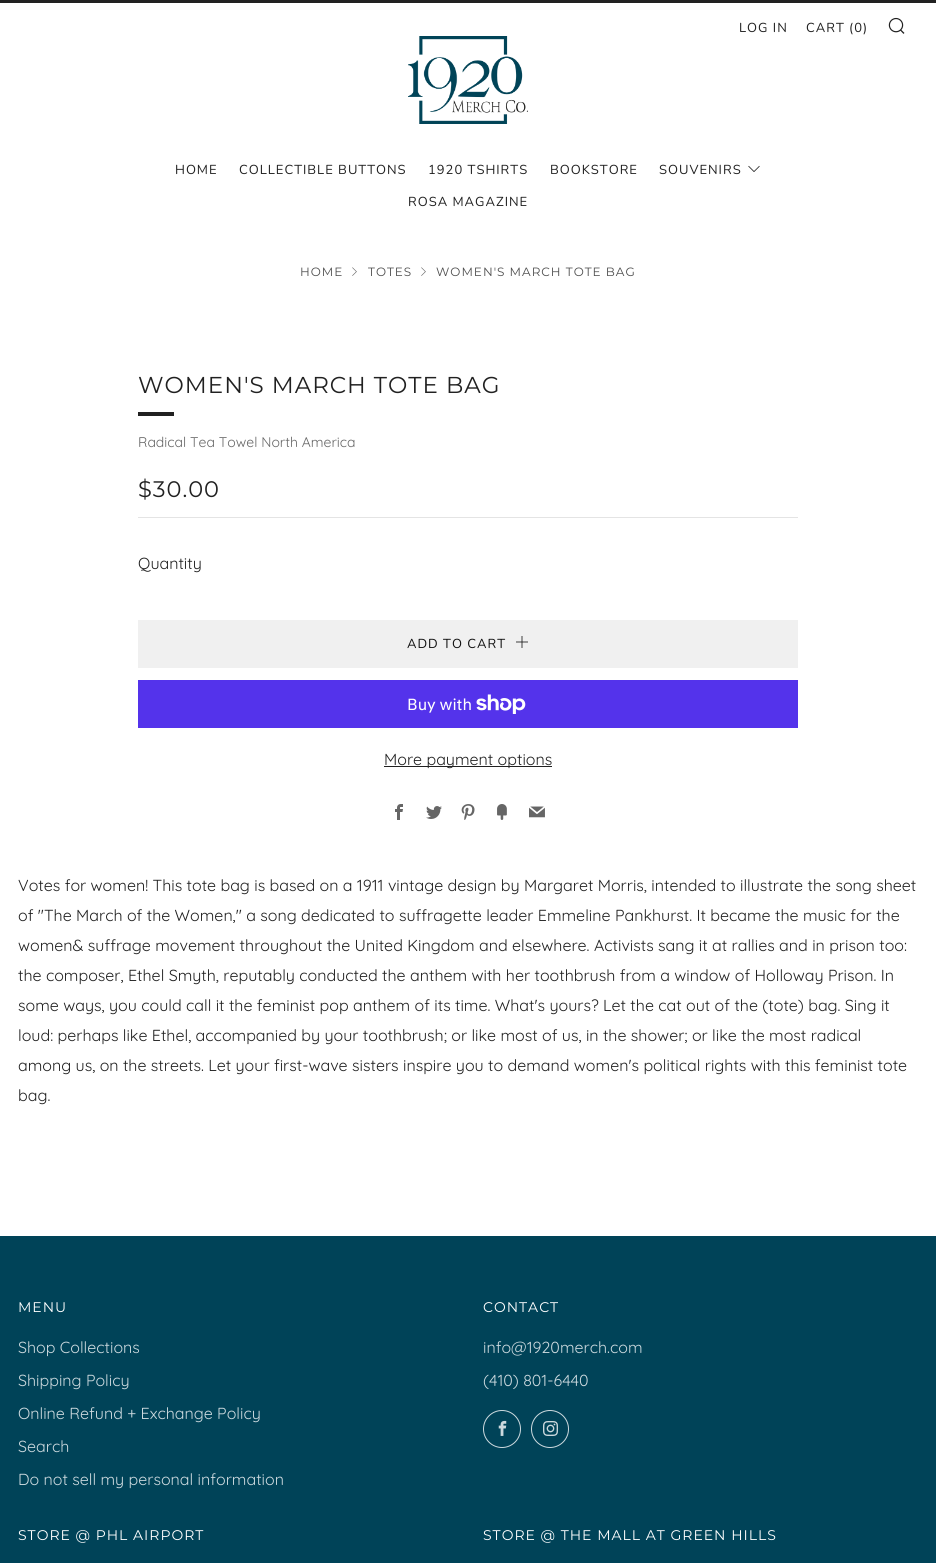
import math
import cairo


def use_color(cr, r, g, b):
  cr.set_source_rgb(r / 255, g / 255, b / 255)

def text(cr, x, y, s, family, size, color, bold=False, italic=False):
  cr.select_font_face(family, cairo.FONT_SLANT_ITALIC if italic else cairo.FONT_SLANT_NORMAL, cairo.FONT_WEIGHT_BOLD if bold else cairo.FONT_WEIGHT_NORMAL)
  cr.set_font_size(size)
  use_color(cr, *color)
  cr.move_to(x, y)
  cr.show_text(s)

def spaced_text(cr, x, y, s, letter, word):
  cr.move_to(x, y)
  for ch in s:
    cr.show_text(ch)
    cr.rel_move_to(letter + word * (ch == ' '), 0)

def box(cr, x, y, w, h, *color):
  use_color(cr, *color)
  cr.rectangle(x, y, w, h)
  cr.fill()

def picture(cr, path, x, y, w, h):
  cr.save()
  cr.set_source_surface(cairo.ImageSurface.create_from_png(path), x, y)
  cr.rectangle(x, y, w, h)
  cr.fill()
  cr.restore()

def draw(cr):
  use_color(cr, 255, 255, 255)
  cr.paint()
  box(cr, 0, 0, 936, 3, 33, 33, 33)
  picture(cr, "img_01.png", 888, 17, 17, 17)
  picture(cr, "img_02.png", 748, 165, 12, 7)
  picture(cr, "img_03.png", 408, 36, 120, 88)
  picture(cr, "img_04.png", 352, 267, 5, 9)
  picture(cr, "img_04.png", 421, 267, 5, 9)
  box(cr, 138, 412, 36, 4, 33, 33, 33)
  box(cr, 138, 517, 660, 1, 228, 228, 228)
  box(cr, 138, 620, 660, 48, 240, 240, 240)
  picture(cr, "img_05.png", 516, 636, 12, 12)
  box(cr, 138, 680, 660, 48, 84, 51, 235)
  picture(cr, "img_06.png", 476, 694, 50, 20)
  box(cr, 384, 766, 168, 1, 33, 33, 33)
  picture(cr, "img_07.png", 395, 804, 8, 16)
  picture(cr, "img_08.png", 426, 806, 16, 13)
  picture(cr, "img_09.png", 461, 804, 14, 16)
  picture(cr, "img_10.png", 497, 804, 10, 16)
  picture(cr, "img_11.png", 529, 806, 16, 12)
  box(cr, 0, 1236, 936, 327, 0, 67, 88)
  cr.arc(502, 1429, 18.5, 0, 2 * math.pi)
  use_color(cr, 204, 217, 222)
  cr.set_line_width(1)
  cr.stroke()
  picture(cr, "img_12.png", 498, 1420, 9, 16)
  cr.arc(550, 1429, 18.5, 0, 2 * math.pi)
  cr.stroke()
  picture(cr, "img_13.png", 543, 1421, 15, 15)
  cr.select_font_face("Nunito")
  cr.set_font_size(13)
  use_color(cr, 33, 33, 33)
  spaced_text(cr, 739, 32, "LOG IN", 1, 0)
  spaced_text(cr, 806, 32, "CART (0)", 1, 0)
  spaced_text(cr, 175, 174, "HOME", 1, 0)
  spaced_text(cr, 239, 174, "COLLECTIBLE BUTTONS", 1, 0)
  spaced_text(cr, 428, 174, "1920 TSHIRTS", 1, 0)
  spaced_text(cr, 550, 174, "BOOKSTORE", 1, 0)
  spaced_text(cr, 659, 174, "SOUVENIRS", 1, 0)
  spaced_text(cr, 408, 206, "ROSA MAGAZINE", 1, 0)
  cr.select_font_face("Montserrat")
  cr.set_font_size(12)
  use_color(cr, 77, 77, 77)
  spaced_text(cr, 300, 276, "HOME", 1, 0)
  spaced_text(cr, 368, 276, "TOTES", 1, 0)
  spaced_text(cr, 436, 276, "WOMEN'S MARCH TOTE BAG", 1, 0)
  cr.set_font_size(23)
  use_color(cr, 33, 33, 33)
  spaced_text(cr, 138, 393, "WOMEN'S MARCH TOTE BAG", 1, 0)
  text(cr, 138, 447, "Radical Tea Towel North America", "Quicksand", 14, (102, 102, 102))
  cr.select_font_face("Montserrat")
  cr.set_font_size(22.5)
  use_color(cr, 33, 33, 33)
  spaced_text(cr, 138, 497, "$30.00", 1, 0)
  text(cr, 138, 569, "Quantity", "Quicksand", 16, (33, 33, 33))
  cr.select_font_face("Nunito")
  cr.set_font_size(13)
  use_color(cr, 17, 17, 17)
  spaced_text(cr, 407, 648, "ADD TO CART", 1, 0)
  text(cr, 407, 710, "Buy with", "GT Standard", 16, (255, 255, 255))
  text(cr, 384, 765, "More payment options", "Quicksand", 16, (33, 33, 33))
  text(cr, 18, 891, "Votes for women! This tote bag is based on a 1911 vintage design by Margaret Morris, intended to illustrate the song sheet", "Quicksand", 16, (33, 33, 33))
  text(cr, 18, 921, "of \"The March of the Women,\" a song dedicated to suffragette leader Emmeline Pankhurst. It became the music for the", "Quicksand", 16, (33, 33, 33))
  text(cr, 18, 951, "women& suffrage movement throughout the United Kingdom and elsewhere. Activists sang it at rallies and in prison too:", "Quicksand", 16, (33, 33, 33))
  text(cr, 18, 981, "the composer, Ethel Smyth, reputably conducted the anthem with her toothbrush from a window of Holloway Prison. In", "Quicksand", 16, (33, 33, 33))
  text(cr, 18, 1011, "some ways, you could call it the feminist pop anthem of its time. What's yours? Let the cat out of the (tote) bag. Sing it", "Quicksand", 16, (33, 33, 33))
  text(cr, 18, 1041, "loud: perhaps like Ethel, accompanied by your toothbrush; or like most of us, in the shower; or like the most radical", "Quicksand", 16, (33, 33, 33))
  text(cr, 18, 1071, "among us, on the streets. Let your first-wave sisters inspire you to demand women's political rights with this feminist tote", "Quicksand", 16, (33, 33, 33))
  text(cr, 18, 1101, "bag.", "Quicksand", 16, (33, 33, 33))
  cr.select_font_face("Montserrat")
  cr.set_font_size(14)
  use_color(cr, 255, 255, 255)
  spaced_text(cr, 18, 1312, "MENU", 1, 0)
  text(cr, 18, 1353, "Shop Collections", "Quicksand", 16, (204, 217, 222))
  text(cr, 18, 1386, "Shipping Policy", "Quicksand", 16, (204, 217, 222))
  text(cr, 18, 1419, "Online Refund + Exchange Policy", "Quicksand", 16, (204, 217, 222))
  text(cr, 18, 1452, "Search", "Quicksand", 16, (204, 217, 222))
  text(cr, 18, 1485, "Do not sell my personal information", "Quicksand", 16, (204, 217, 222))
  cr.select_font_face("Montserrat")
  cr.set_font_size(14)
  use_color(cr, 255, 255, 255)
  spaced_text(cr, 483, 1312, "CONTACT", 1, 0)
  text(cr, 483, 1353, "info@1920merch.com", "Quicksand", 16, (204, 217, 222))
  text(cr, 483, 1386, "(410) 801-6440", "Quicksand", 16, (204, 217, 222))
  cr.select_font_face("Montserrat")
  cr.set_font_size(14)
  use_color(cr, 255, 255, 255)
  spaced_text(cr, 18, 1540, "STORE @ PHL AIRPORT", 1, 0)
  spaced_text(cr, 483, 1540, "STORE @ THE MALL AT GREEN HILLS", 1, 0)


surface = cairo.ImageSurface(cairo.FORMAT_RGB24, 936, 1563)
cr = cairo.Context(surface)
options = cairo.FontOptions()
options.set_hint_metrics(cairo.HINT_METRICS_OFF)
options.set_hint_style(cairo.HINT_STYLE_NONE)
cr.set_font_options(options)
cr.set_miter_limit(4)
draw(cr)
surface.write_to_png("out.png")
